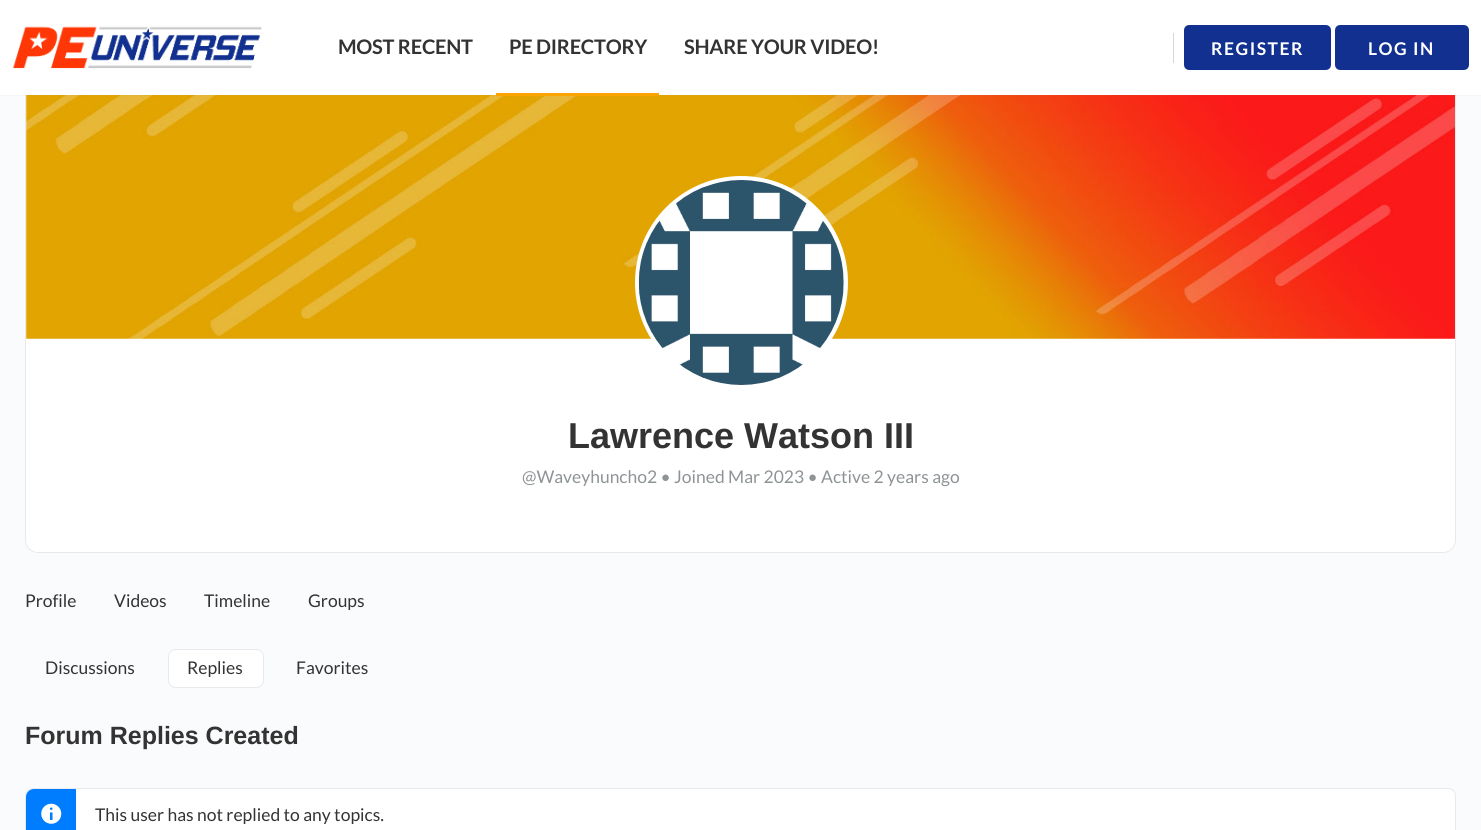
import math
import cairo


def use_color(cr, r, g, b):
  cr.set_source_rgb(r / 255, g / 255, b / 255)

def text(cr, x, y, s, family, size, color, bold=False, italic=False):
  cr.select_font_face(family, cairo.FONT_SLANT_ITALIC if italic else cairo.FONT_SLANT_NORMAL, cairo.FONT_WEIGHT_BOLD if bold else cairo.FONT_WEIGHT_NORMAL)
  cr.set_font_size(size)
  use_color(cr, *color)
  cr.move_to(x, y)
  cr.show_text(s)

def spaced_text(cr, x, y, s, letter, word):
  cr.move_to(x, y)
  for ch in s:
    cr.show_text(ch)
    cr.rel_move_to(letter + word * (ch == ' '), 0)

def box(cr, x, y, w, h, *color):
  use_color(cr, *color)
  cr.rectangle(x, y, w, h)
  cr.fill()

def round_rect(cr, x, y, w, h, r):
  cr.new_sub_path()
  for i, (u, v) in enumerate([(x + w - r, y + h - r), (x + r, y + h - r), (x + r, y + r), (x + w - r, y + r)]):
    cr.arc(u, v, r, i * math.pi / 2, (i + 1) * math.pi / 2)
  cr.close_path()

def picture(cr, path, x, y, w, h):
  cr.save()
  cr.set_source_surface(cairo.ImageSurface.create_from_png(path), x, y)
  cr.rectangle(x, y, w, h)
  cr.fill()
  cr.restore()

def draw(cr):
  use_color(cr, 250, 251, 253)
  cr.paint()
  use_color(cr, 255, 255, 255)
  cr.new_path()
  cr.move_to(25, 95)
  cr.line_to(1456, 95)
  cr.line_to(1456, 540)
  cr.curve_to(1456, 547, 1450, 553, 1443, 553)
  cr.line_to(38, 553)
  cr.curve_to(31, 553, 25, 547, 25, 540)
  cr.close_path()
  cr.fill()
  cr.new_path()
  cr.move_to(25.5, 56.5)
  cr.line_to(1455.5, 56.5)
  cr.line_to(1455.5, 540)
  cr.curve_to(1455.5, 547, 1450, 552.5, 1443, 552.5)
  cr.line_to(38, 552.5)
  cr.curve_to(31, 552.5, 25.5, 547, 25.5, 540)
  cr.close_path()
  use_color(cr, 231, 233, 236)
  cr.set_line_width(1)
  cr.stroke()
  picture(cr, "img_02.png", 26, 95, 1429, 244)
  cr.set_source_rgba(0.545, 0.553, 0.616, 0.05)
  cr.rectangle(0, 95, 1481, 1)
  cr.fill()
  box(cr, 0, 0, 1481, 95, 255, 255, 255)
  picture(cr, "img_01.png", 13, 26, 249, 43)
  box(cr, 496, 93, 163, 3, 255, 163, 0)
  box(cr, 1173, 33, 1, 30, 214, 214, 214)
  use_color(cr, 17, 48, 143)
  round_rect(cr, 1185.5, 26.5, 144, 42, 3.5)
  cr.fill_preserve()
  cr.set_line_width(3)
  cr.stroke()
  round_rect(cr, 1336.5, 26.5, 131, 42, 3.5)
  cr.fill_preserve()
  cr.stroke()
  use_color(cr, 255, 255, 255)
  cr.arc(741.5, 282.5, 104.5, 0, 2 * math.pi)
  cr.fill_preserve()
  cr.set_line_width(4)
  cr.stroke()
  picture(cr, "img_03.png", 638, 180, 206, 205)
  round_rect(cr, 168.5, 649.5, 95, 38, 7.5)
  cr.fill_preserve()
  use_color(cr, 231, 233, 236)
  cr.set_line_width(1)
  cr.stroke()
  use_color(cr, 255, 255, 255)
  round_rect(cr, 25.5, 788.5, 1430, 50, 7.5)
  cr.fill_preserve()
  use_color(cr, 231, 233, 236)
  cr.stroke()
  use_color(cr, 0, 124, 255)
  cr.new_path()
  cr.move_to(34, 789)
  cr.line_to(76, 789)
  cr.line_to(76, 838)
  cr.line_to(34, 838)
  cr.curve_to(29.5, 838, 26, 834.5, 26, 830)
  cr.line_to(26, 797)
  cr.curve_to(26, 792.5, 29.5, 789, 34, 789)
  cr.close_path()
  cr.fill()
  picture(cr, "img_04.png", 41, 803, 21, 21)
  cr.select_font_face("Lato", cairo.FONT_SLANT_NORMAL, cairo.FONT_WEIGHT_BOLD)
  cr.set_font_size(20)
  use_color(cr, 51, 51, 51)
  spaced_text(cr, 338, 54, "MOST RECENT", -0.25, 0)
  spaced_text(cr, 509, 54, "PE DIRECTORY", -0.25, 0)
  spaced_text(cr, 684, 54, "SHARE YOUR VIDEO!", -0.25, 0)
  cr.set_font_size(17.5)
  use_color(cr, 255, 255, 255)
  spaced_text(cr, 1211, 55, "REGISTER", 1.5, 0)
  spaced_text(cr, 1368, 55, "LOG IN", 1.5, 0)
  text(cr, 568, 448, "Lawrence Watson III", "Arimo", 36, (51, 51, 51), bold=True)
  text(cr, 522, 483, "@Waveyhuncho2 • Joined Mar 2023 • Active 2 years ago", "Lato", 17.5, (142, 147, 150))
  text(cr, 25, 607, "Profile", "Lato", 17.5, (51, 51, 51))
  text(cr, 114, 607, "Videos", "Lato", 17.5, (51, 51, 51))
  text(cr, 204, 607, "Timeline", "Lato", 17.5, (51, 51, 51))
  text(cr, 308, 607, "Groups", "Lato", 17.5, (51, 51, 51))
  text(cr, 45, 674, "Discussions", "Lato", 17.5, (51, 51, 51))
  text(cr, 187, 674, "Replies", "Lato", 17.5, (51, 51, 51))
  text(cr, 296, 674, "Favorites", "Lato", 17.5, (51, 51, 51))
  text(cr, 25, 744, "Forum Replies Created", "Arimo", 25, (51, 51, 51), bold=True)
  text(cr, 95, 821, "This user has not replied to any topics.", "Lato", 17.5, (51, 51, 51))


surface = cairo.ImageSurface(cairo.FORMAT_RGB24, 1481, 830)
cr = cairo.Context(surface)
options = cairo.FontOptions()
options.set_hint_metrics(cairo.HINT_METRICS_OFF)
options.set_hint_style(cairo.HINT_STYLE_NONE)
cr.set_font_options(options)
cr.set_miter_limit(4)
draw(cr)
surface.write_to_png("out.png")
